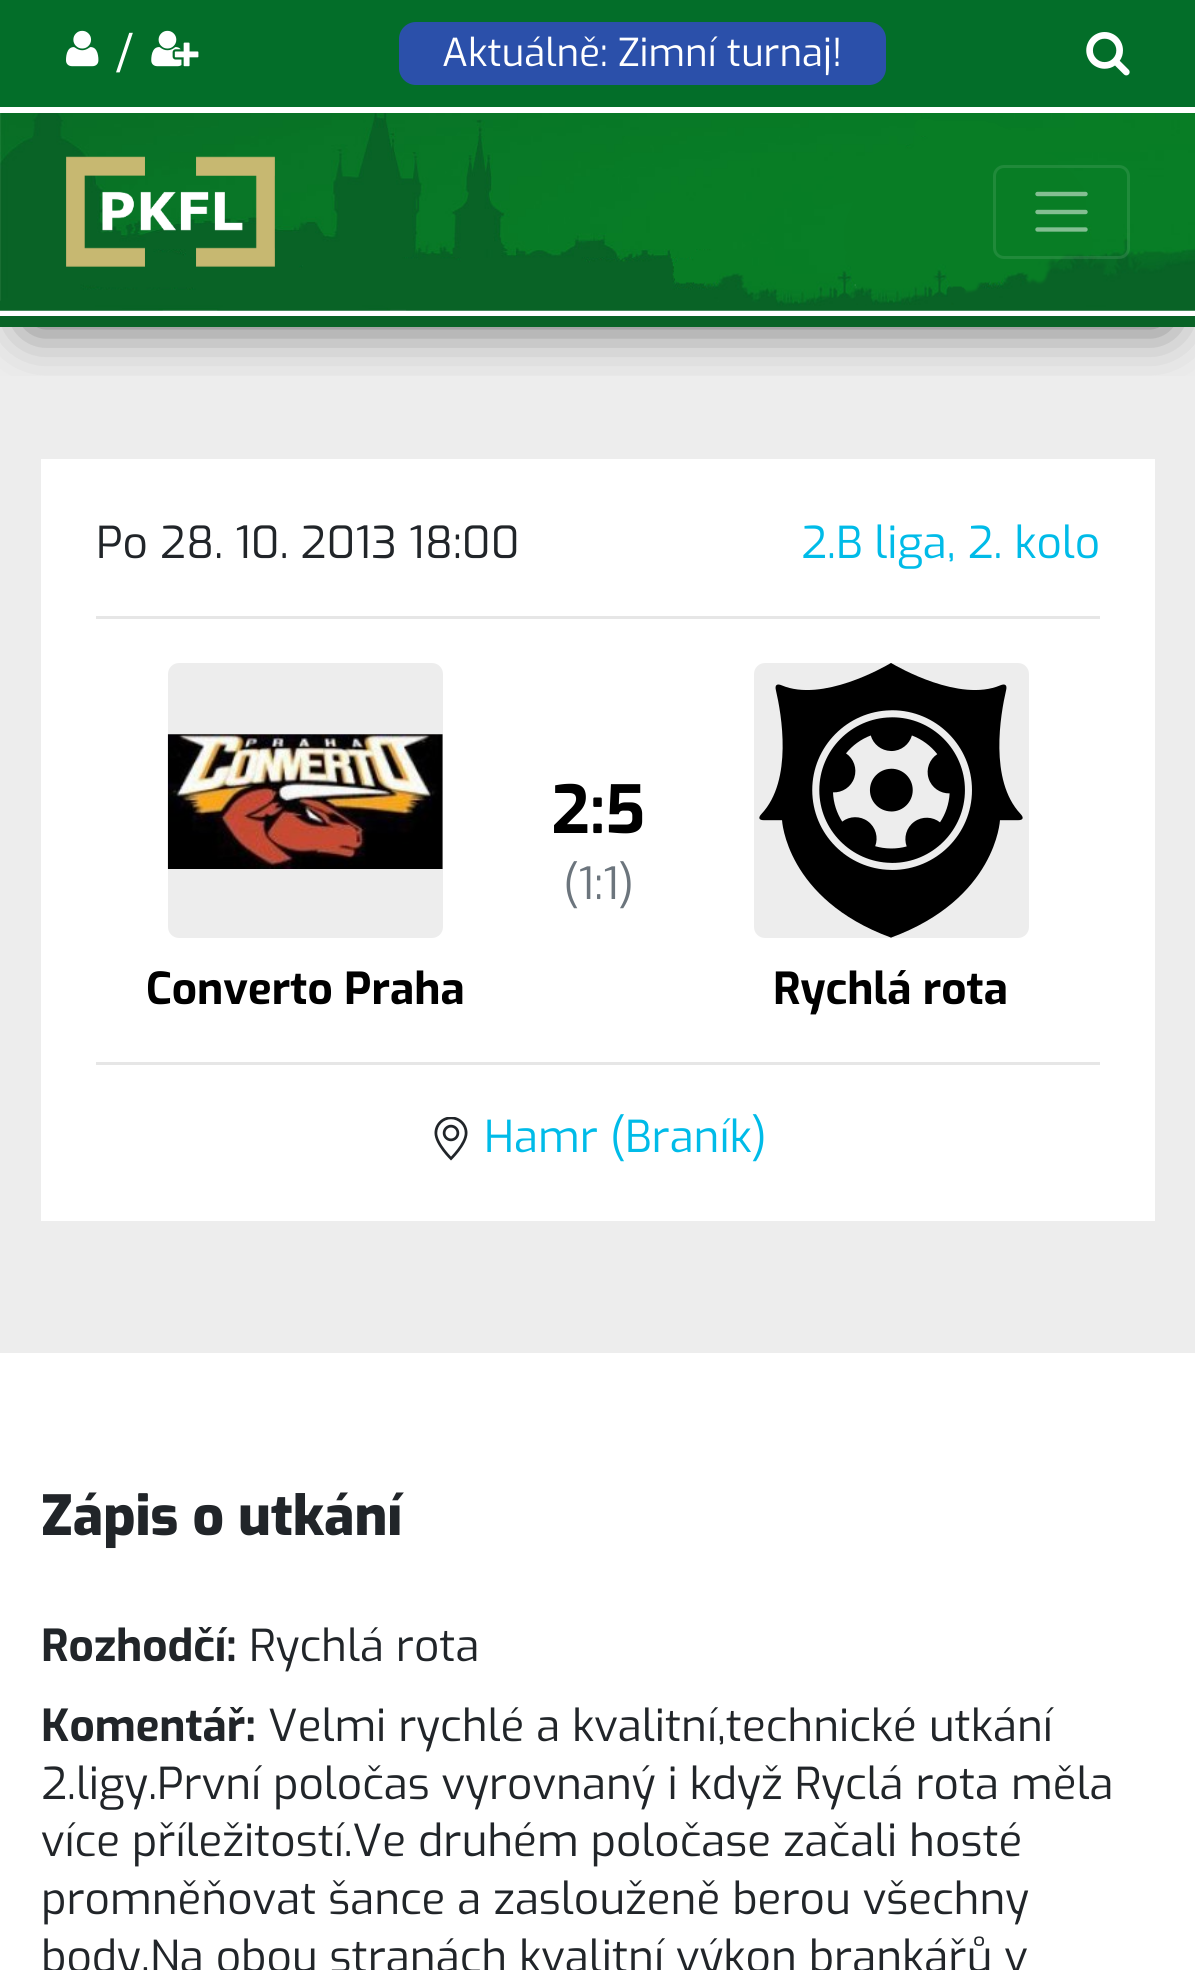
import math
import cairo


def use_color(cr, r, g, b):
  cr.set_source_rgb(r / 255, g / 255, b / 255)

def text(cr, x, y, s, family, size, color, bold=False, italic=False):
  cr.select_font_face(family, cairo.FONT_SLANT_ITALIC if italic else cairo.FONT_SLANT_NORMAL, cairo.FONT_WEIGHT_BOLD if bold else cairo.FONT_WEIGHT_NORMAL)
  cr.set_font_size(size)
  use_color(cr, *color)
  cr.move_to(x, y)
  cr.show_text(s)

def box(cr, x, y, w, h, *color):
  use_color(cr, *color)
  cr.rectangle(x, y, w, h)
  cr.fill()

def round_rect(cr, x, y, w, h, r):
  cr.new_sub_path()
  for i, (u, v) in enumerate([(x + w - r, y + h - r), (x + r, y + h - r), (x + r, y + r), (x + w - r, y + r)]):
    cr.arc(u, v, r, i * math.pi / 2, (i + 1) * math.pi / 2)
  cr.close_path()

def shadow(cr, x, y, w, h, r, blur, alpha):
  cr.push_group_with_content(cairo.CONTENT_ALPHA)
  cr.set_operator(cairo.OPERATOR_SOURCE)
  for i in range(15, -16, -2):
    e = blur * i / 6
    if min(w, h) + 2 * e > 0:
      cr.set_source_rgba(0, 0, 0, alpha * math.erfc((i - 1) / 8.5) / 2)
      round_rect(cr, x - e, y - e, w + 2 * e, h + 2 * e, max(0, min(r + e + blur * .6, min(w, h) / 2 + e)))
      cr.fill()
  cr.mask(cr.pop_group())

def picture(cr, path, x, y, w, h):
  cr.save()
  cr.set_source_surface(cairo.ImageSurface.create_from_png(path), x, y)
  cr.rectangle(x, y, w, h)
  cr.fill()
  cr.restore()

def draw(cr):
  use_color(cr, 255, 255, 255)
  cr.paint()
  box(cr, 0, 0, 1195, 107, 3, 110, 41)
  picture(cr, "img_01.png", 66, 30, 33, 37)
  picture(cr, "img_02.png", 151, 30, 48, 37)
  use_color(cr, 43, 80, 170)
  round_rect(cr, 399, 22, 487, 63, 17)
  cr.fill()
  picture(cr, "img_03.png", 1086, 32, 44, 44)
  box(cr, 0, 327, 1195, 1026, 237, 237, 237)
  cr.save()
  cr.rectangle(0, 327, 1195, 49)
  cr.clip()
  use_color(cr, 0, 0, 0)
  shadow(cr, 30, 171, 1136, 154, 0, 27.5, 0.61)
  cr.restore()
  picture(cr, "img_04.png", 0, 113, 1195, 198)
  picture(cr, "img_05.png", 66, 156, 209, 111)
  round_rect(cr, 994.5, 166.5, 134, 91, 9.5)
  cr.set_source_rgba(1, 1, 1, 0.1)
  cr.set_line_width(3)
  cr.stroke()
  cr.new_path()
  cr.move_to(1037.5, 194)
  cr.line_to(1085.5, 194)
  cr.move_to(1037.5, 212)
  cr.line_to(1085.5, 212)
  cr.move_to(1037.5, 229.5)
  cr.line_to(1085.5, 229.5)
  cr.set_source_rgba(1, 1, 1, 0.5)
  cr.set_line_width(4.4)
  cr.set_line_cap(cairo.LINE_CAP_ROUND)
  cr.stroke()
  box(cr, 0, 316, 1195, 11, 9, 99, 38)
  box(cr, 41, 459, 1114, 762, 255, 255, 255)
  box(cr, 96, 616, 1004, 3, 230, 230, 230)
  use_color(cr, 237, 237, 237)
  round_rect(cr, 168, 663, 275, 275, 11)
  cr.fill()
  picture(cr, "img_06.png", 167, 734, 276, 135)
  round_rect(cr, 754, 663, 275, 275, 11)
  cr.fill()
  picture(cr, "img_07.png", 759, 663, 264, 275)
  box(cr, 96, 1062, 1004, 3, 230, 230, 230)
  picture(cr, "img_08.png", 434, 1117, 34, 44)
  text(cr, 115, 69, "/", "Exo", 47, (255, 255, 255))
  text(cr, 442, 66, "Aktuálně: Zimní turnaj!", "Exo", 38.5, (255, 255, 255))
  text(cr, 96, 558, "Po 28. 10. 2013 18:00", "Exo", 44, (33, 37, 41))
  text(cr, 801, 558, "2.B liga, 2. kolo", "Exo", 44, (0, 187, 232))
  text(cr, 551, 833, "2:5", "Exo", 66, (0, 0, 0), bold=True)
  text(cr, 563, 899, "(1:1)", "Exo", 44, (108, 117, 125))
  text(cr, 146, 1004, "Converto Praha", "Exo", 44, (0, 0, 0), bold=True)
  text(cr, 773, 1004, "Rychlá rota", "Exo", 44, (0, 0, 0), bold=True)
  text(cr, 484, 1152, "Hamr (Braník)", "Exo", 44, (0, 187, 232))
  text(cr, 41, 1535, "Zápis o utkání", "Exo ExtraBold", 55, (33, 37, 41))
  text(cr, 41, 1661, "Rozhodčí:", "Exo", 44, (33, 37, 41), bold=True)
  text(cr, 249, 1661, "Rychlá rota", "Exo", 44, (33, 37, 41))
  text(cr, 41, 1741, "Komentář:", "Exo", 44, (33, 37, 41), bold=True)
  text(cr, 268, 1741, "Velmi rychlé a kvalitní,technické utkání", "Exo", 44, (33, 37, 41))
  text(cr, 41, 1799, "2.ligy.První poločas vyrovnaný i když Ryclá rota měla", "Exo", 44, (33, 37, 41))
  text(cr, 41, 1856, "více příležitostí.Ve druhém poločase začali hosté", "Exo", 44, (33, 37, 41))
  text(cr, 41, 1914, "promněňovat šance a zaslouženě berou všechny", "Exo", 44, (33, 37, 41))
  text(cr, 41, 1972, "body.Na obou stranách kvalitní výkon brankářů v", "Exo", 44, (33, 37, 41))


surface = cairo.ImageSurface(cairo.FORMAT_RGB24, 1195, 1970)
cr = cairo.Context(surface)
options = cairo.FontOptions()
options.set_hint_metrics(cairo.HINT_METRICS_OFF)
options.set_hint_style(cairo.HINT_STYLE_NONE)
cr.set_font_options(options)
cr.set_miter_limit(4)
draw(cr)
surface.write_to_png("out.png")
